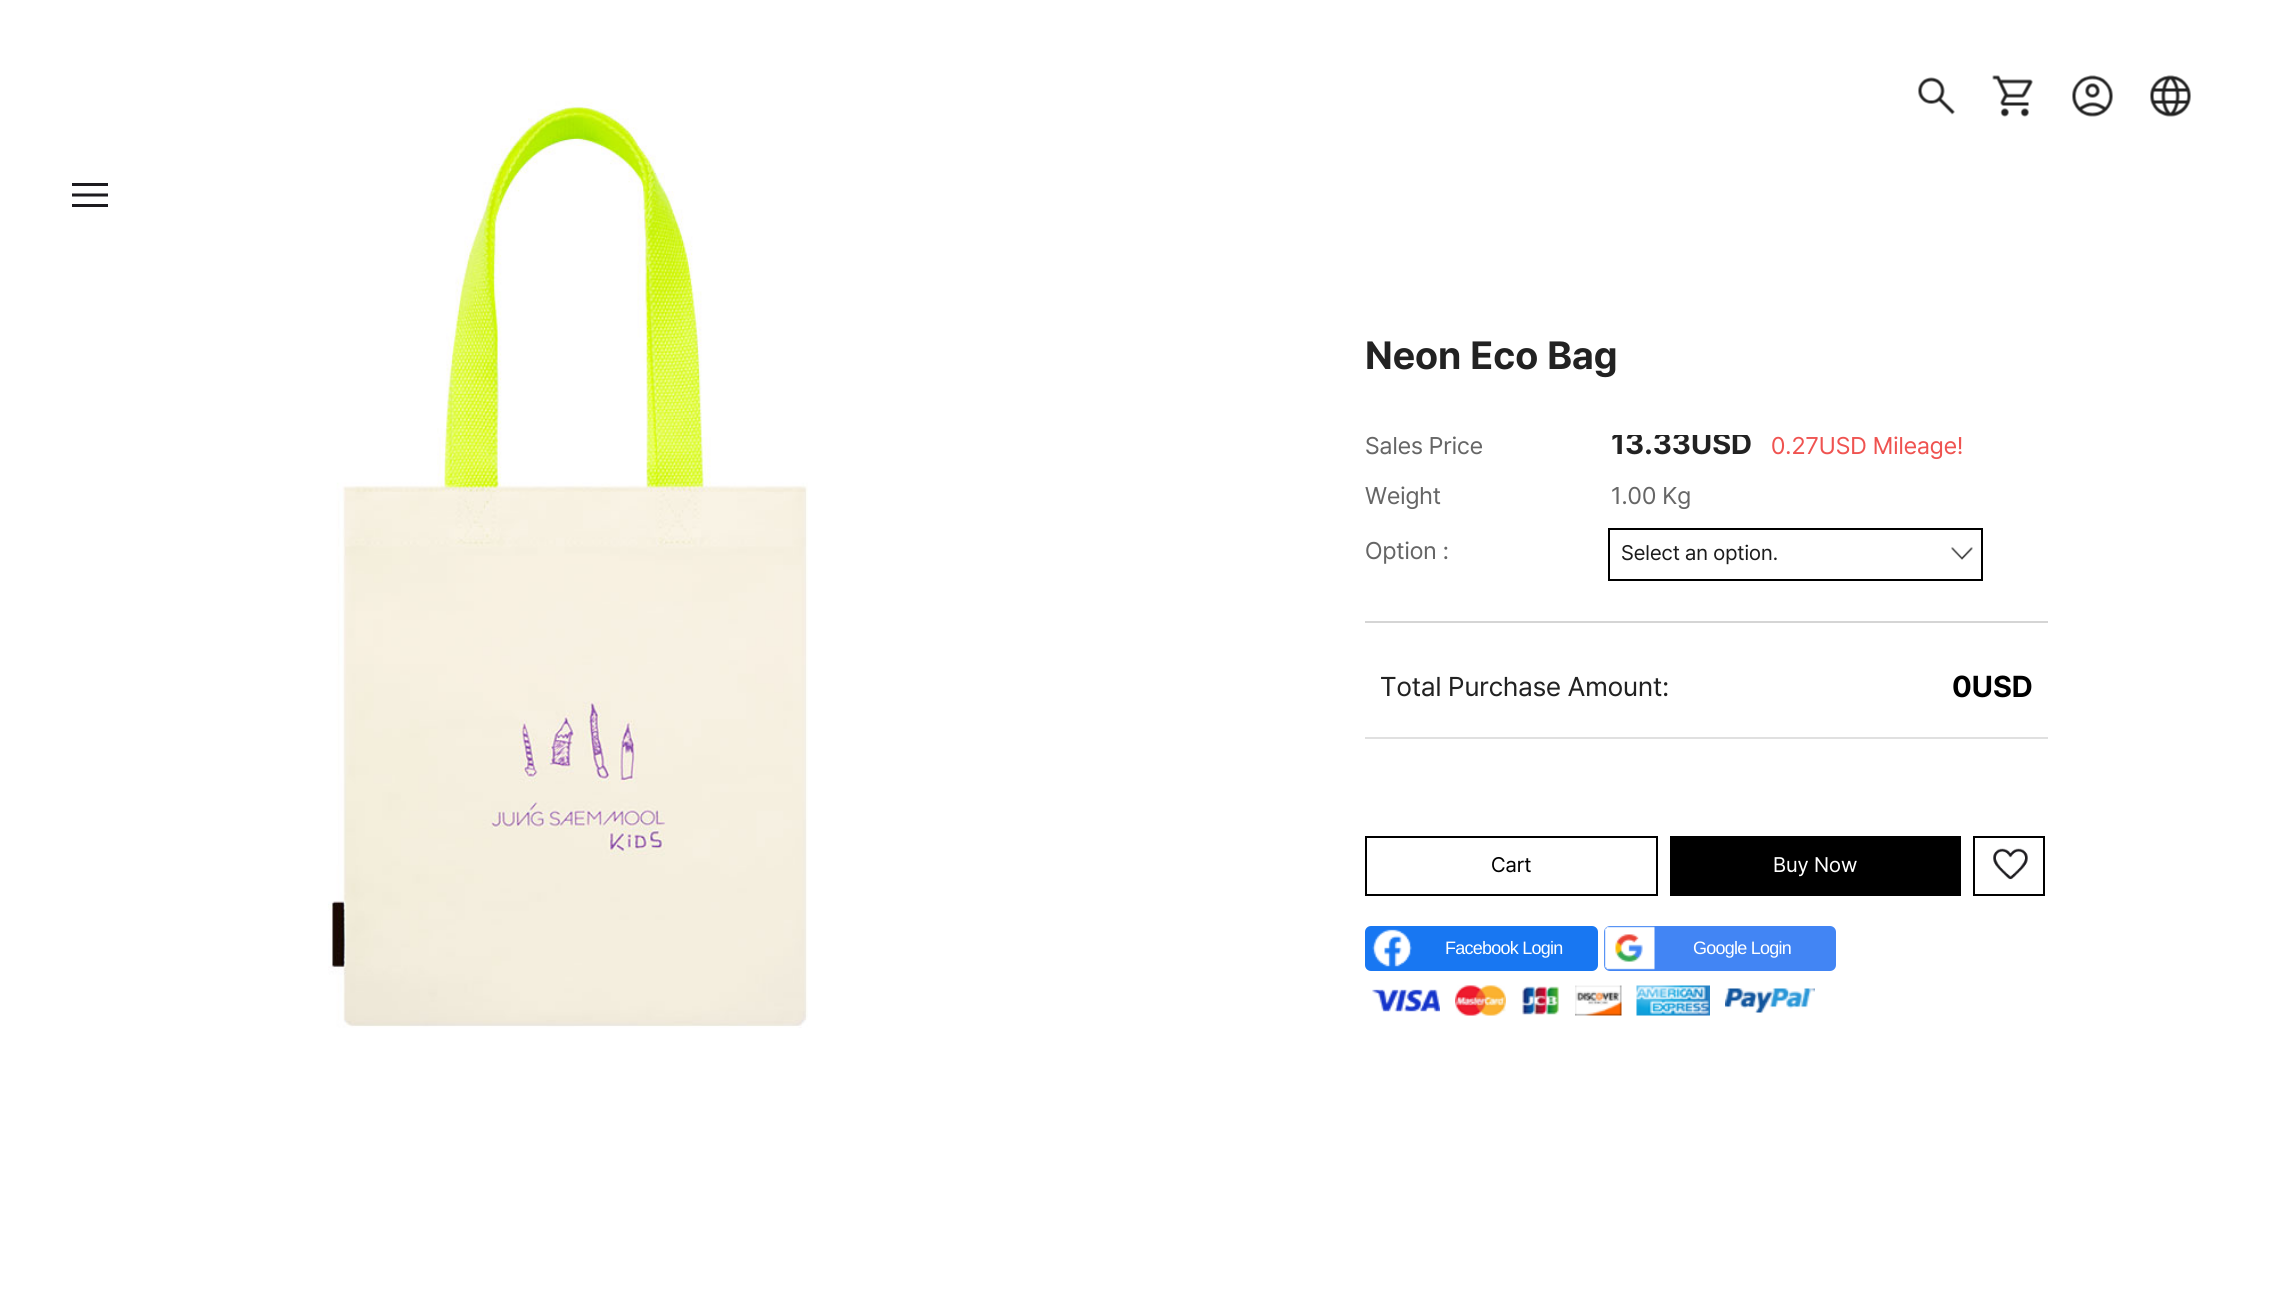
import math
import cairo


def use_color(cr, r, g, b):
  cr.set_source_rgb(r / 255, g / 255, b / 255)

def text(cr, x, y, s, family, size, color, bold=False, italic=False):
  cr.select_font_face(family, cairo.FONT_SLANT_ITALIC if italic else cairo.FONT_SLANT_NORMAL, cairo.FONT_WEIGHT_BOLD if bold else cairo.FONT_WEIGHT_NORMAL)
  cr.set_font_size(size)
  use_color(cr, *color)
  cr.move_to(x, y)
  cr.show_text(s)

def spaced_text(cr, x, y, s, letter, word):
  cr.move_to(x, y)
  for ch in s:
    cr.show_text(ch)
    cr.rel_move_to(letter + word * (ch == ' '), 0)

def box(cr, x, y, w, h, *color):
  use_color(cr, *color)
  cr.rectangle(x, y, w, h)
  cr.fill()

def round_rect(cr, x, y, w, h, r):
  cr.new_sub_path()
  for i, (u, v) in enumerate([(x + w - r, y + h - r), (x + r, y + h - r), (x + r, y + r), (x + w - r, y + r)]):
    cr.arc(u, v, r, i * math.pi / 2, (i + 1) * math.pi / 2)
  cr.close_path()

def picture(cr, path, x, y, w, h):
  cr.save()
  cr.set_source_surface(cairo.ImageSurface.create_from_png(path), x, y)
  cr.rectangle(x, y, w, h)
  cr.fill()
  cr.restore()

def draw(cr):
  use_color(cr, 255, 255, 255)
  cr.paint()
  picture(cr, "img_01.png", 1918, 77, 37, 38)
  picture(cr, "img_02.png", 1992, 75, 41, 42)
  picture(cr, "img_03.png", 2072, 75, 41, 42)
  picture(cr, "img_04.png", 2150, 75, 41, 42)
  picture(cr, "img_05.png", 72, 183, 36, 24)
  picture(cr, "img_06.png", 328, 100, 480, 928)
  picture(cr, "img_07.png", 1951, 547, 22, 13)
  cr.rectangle(1609, 529, 373, 51)
  use_color(cr, 0, 0, 0)
  cr.stroke()
  box(cr, 1365, 621, 683, 2, 213, 213, 213)
  box(cr, 1365, 737, 683, 2, 224, 224, 224)
  cr.rectangle(1366, 837, 291, 58)
  use_color(cr, 0, 0, 0)
  cr.stroke()
  box(cr, 1670, 836, 291, 60, 0, 0, 0)
  cr.rectangle(1974, 837, 70, 58)
  cr.stroke()
  picture(cr, "img_08.png", 1993, 848, 35, 32)
  use_color(cr, 24, 119, 242)
  round_rect(cr, 1365, 926, 233, 45, 6)
  cr.fill()
  picture(cr, "img_09.png", 1372, 929, 40, 38)
  use_color(cr, 66, 133, 244)
  round_rect(cr, 1604, 926, 232, 45, 6)
  cr.fill()
  picture(cr, "img_10.png", 1604, 926, 51, 44)
  picture(cr, "img_11.png", 1372, 989, 68, 23)
  picture(cr, "img_12.png", 1455, 985, 51, 31)
  picture(cr, "img_13.png", 1522, 986, 37, 29)
  picture(cr, "img_14.png", 1575, 985, 47, 31)
  picture(cr, "img_15.png", 1636, 985, 74, 31)
  picture(cr, "img_16.png", 1725, 988, 90, 25)
  text(cr, 1365, 369, "Neon Eco Bag", "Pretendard", 39, (34, 34, 34), bold=True)
  text(cr, 1365, 454, "Sales Price", "Pretendard", 24, (102, 102, 102))
  cr.save()
  cr.rectangle(1365, 435, 636, 74)
  cr.clip()
  text(cr, 1611, 454, "13.33USD", "Pretendard", 30, (34, 34, 34), bold=True)
  cr.restore()
  text(cr, 1771, 454, "0.27USD Mileage!", "Pretendard", 24, (239, 83, 80))
  text(cr, 1365, 504, "Weight", "Pretendard", 24, (102, 102, 102))
  text(cr, 1611, 504, "1.00 Kg", "Pretendard", 24, (102, 102, 102))
  text(cr, 1365, 559, "Option :", "Pretendard", 24, (102, 102, 102))
  text(cr, 1621, 560, "Select an option.", "Pretendard", 21, (28, 28, 28))
  text(cr, 1380, 696, "Total Purchase Amount:", "Pretendard", 27, (34, 34, 34))
  text(cr, 1952, 697, "0USD", "Pretendard", 30, (0, 0, 0), bold=True)
  text(cr, 1491, 872, "Cart", "Pretendard", 21, (0, 0, 0))
  text(cr, 1773, 872, "Buy Now", "Pretendard", 21, (255, 255, 255))
  cr.select_font_face("Liberation Sans")
  cr.set_font_size(18)
  spaced_text(cr, 1445, 954, "Facebook Login", -0.75, 0)
  spaced_text(cr, 1693, 954, "Google Login", -0.75, 0)


surface = cairo.ImageSurface(cairo.FORMAT_RGB24, 2275, 1296)
cr = cairo.Context(surface)
options = cairo.FontOptions()
options.set_hint_metrics(cairo.HINT_METRICS_OFF)
options.set_hint_style(cairo.HINT_STYLE_NONE)
cr.set_font_options(options)
cr.set_miter_limit(4)
draw(cr)
surface.write_to_png("out.png")
